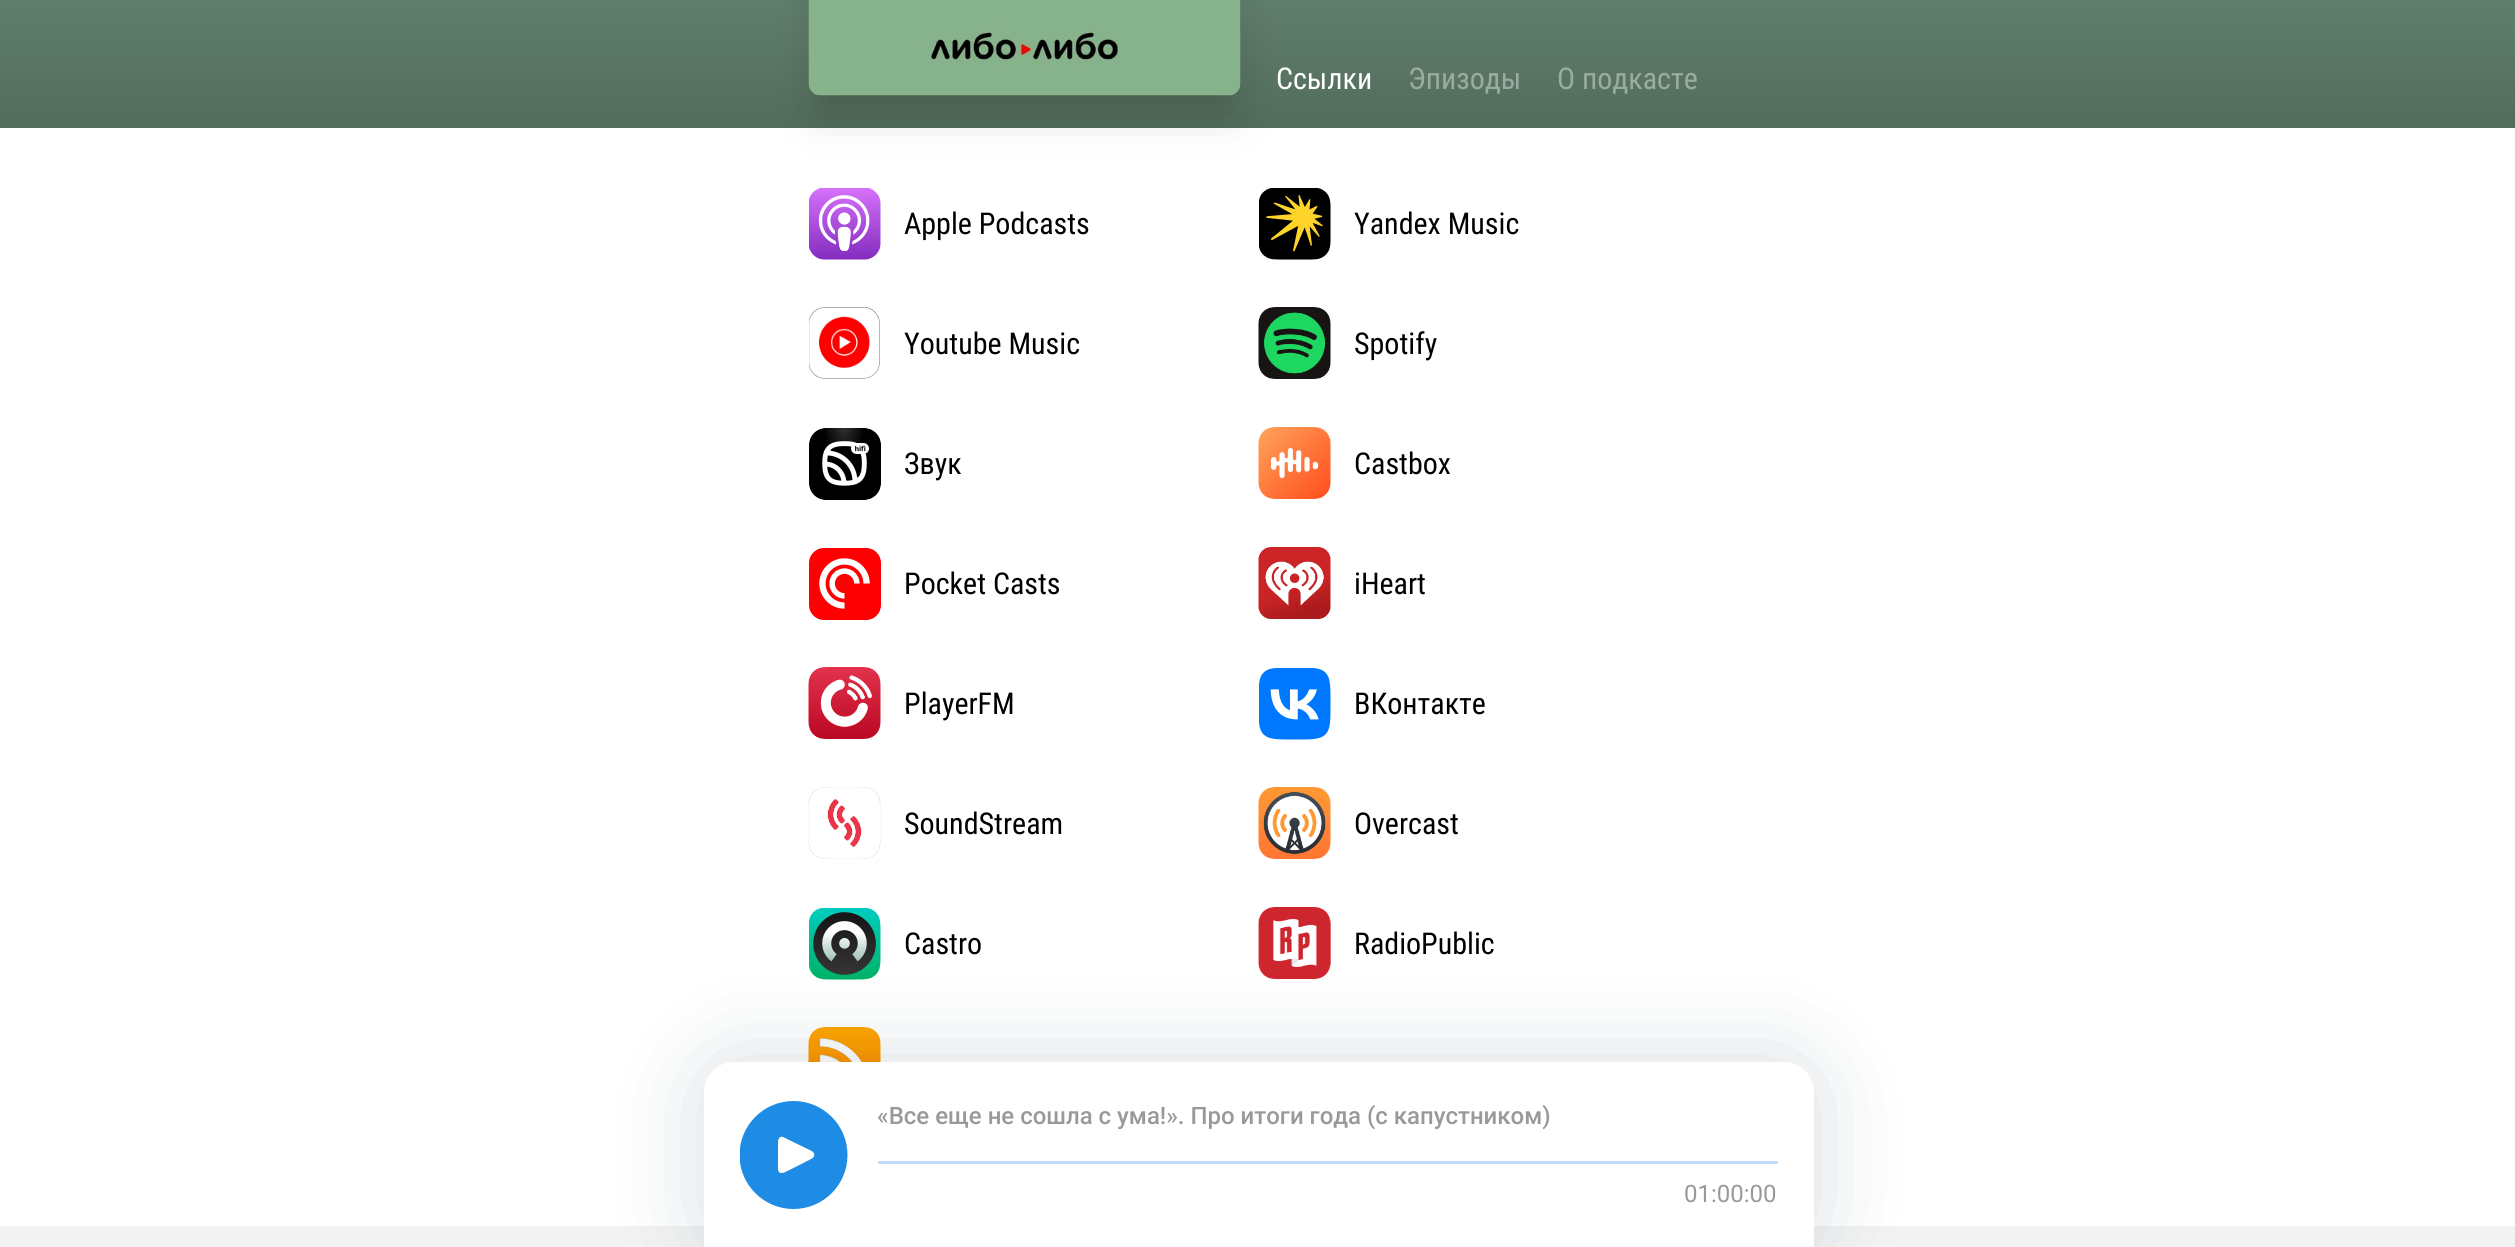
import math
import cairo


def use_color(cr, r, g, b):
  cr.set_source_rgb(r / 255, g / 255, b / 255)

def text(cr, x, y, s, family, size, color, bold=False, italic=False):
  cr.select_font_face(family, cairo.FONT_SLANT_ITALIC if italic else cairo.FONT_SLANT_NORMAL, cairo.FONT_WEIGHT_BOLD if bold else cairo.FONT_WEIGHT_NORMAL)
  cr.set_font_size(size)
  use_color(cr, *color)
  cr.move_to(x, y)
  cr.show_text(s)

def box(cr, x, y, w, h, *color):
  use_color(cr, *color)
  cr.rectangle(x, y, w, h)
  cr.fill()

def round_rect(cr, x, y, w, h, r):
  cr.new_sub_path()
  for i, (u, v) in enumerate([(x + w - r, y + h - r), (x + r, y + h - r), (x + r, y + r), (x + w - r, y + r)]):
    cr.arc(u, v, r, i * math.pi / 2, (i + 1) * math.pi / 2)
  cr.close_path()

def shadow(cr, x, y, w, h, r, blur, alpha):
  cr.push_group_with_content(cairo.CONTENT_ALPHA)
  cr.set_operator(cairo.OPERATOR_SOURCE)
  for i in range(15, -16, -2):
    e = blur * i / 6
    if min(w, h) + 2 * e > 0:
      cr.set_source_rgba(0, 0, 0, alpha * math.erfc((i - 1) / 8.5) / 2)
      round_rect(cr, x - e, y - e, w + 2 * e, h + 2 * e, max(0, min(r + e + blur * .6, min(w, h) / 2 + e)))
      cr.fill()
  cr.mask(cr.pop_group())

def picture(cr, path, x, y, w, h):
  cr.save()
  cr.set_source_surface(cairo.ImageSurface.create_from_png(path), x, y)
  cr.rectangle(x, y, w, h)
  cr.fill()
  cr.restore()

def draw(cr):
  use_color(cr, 255, 255, 255)
  cr.paint()
  gradient = cairo.LinearGradient(1258, -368, 1258, 128)
  gradient.add_color_stop_rgba(0, 0.541, 0.706, 0.6, 1)
  gradient.add_color_stop_rgba(1, 0.325, 0.424, 0.361, 1)
  cr.set_source(gradient)
  cr.rectangle(0, 0, 2515, 128)
  cr.fill()
  use_color(cr, 0, 0, 0)
  shadow(cr, 821, -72, 408, 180, 0, 24, 0.2)
  picture(cr, "img_01.png", 808, 0, 433, 96)
  picture(cr, "img_02.png", 809, 188, 72, 72)
  picture(cr, "img_03.png", 1259, 188, 72, 72)
  picture(cr, "img_04.png", 809, 307, 71, 72)
  picture(cr, "img_05.png", 1258, 307, 73, 72)
  picture(cr, "img_06.png", 809, 428, 72, 72)
  picture(cr, "img_07.png", 1258, 427, 73, 72)
  picture(cr, "img_08.png", 809, 548, 72, 72)
  picture(cr, "img_09.png", 1258, 547, 73, 72)
  picture(cr, "img_10.png", 808, 667, 73, 72)
  picture(cr, "img_11.png", 1259, 668, 72, 72)
  picture(cr, "img_12.png", 808, 787, 73, 72)
  picture(cr, "img_13.png", 1258, 787, 73, 72)
  picture(cr, "img_14.png", 809, 908, 72, 72)
  picture(cr, "img_15.png", 1258, 907, 73, 72)
  picture(cr, "img_16.png", 808, 1027, 73, 35)
  box(cr, 0, 1226, 2515, 21, 243, 243, 243)
  use_color(cr, 1, 24, 44)
  shadow(cr, 704, 1062, 1110, 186, 30, 48, 0.15)
  use_color(cr, 255, 255, 255)
  cr.new_path()
  cr.move_to(734, 1062)
  cr.line_to(1784, 1062)
  cr.curve_to(1800.5, 1062, 1814, 1075.5, 1814, 1092)
  cr.line_to(1814, 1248)
  cr.line_to(704, 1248)
  cr.line_to(704, 1092)
  cr.curve_to(704, 1075.5, 717.5, 1062, 734, 1062)
  cr.close_path()
  cr.fill()
  cr.save()
  cr.rectangle(740, 1101, 108, 108)
  cr.clip()
  use_color(cr, 30, 139, 228)
  cr.arc(793.5, 1155, 54, 0, 2 * math.pi)
  cr.fill()
  cr.restore()
  cr.new_path()
  cr.move_to(812, 1158.5)
  cr.line_to(788.5, 1170.5)
  cr.curve_to(787.5, 1170.5, 784.5, 1173, 782, 1173)
  cr.curve_to(777, 1173.5, 778, 1167.5, 778, 1164.5)
  cr.line_to(778, 1145.5)
  cr.curve_to(778, 1142.5, 777.5, 1135.5, 783, 1137)
  cr.line_to(807.5, 1149)
  cr.curve_to(808.5, 1149.5, 812.5, 1151, 813.5, 1152.5)
  cr.curve_to(815, 1154.5, 814, 1157.5, 812, 1158.5)
  cr.close_path()
  cr.fill()
  use_color(cr, 188, 220, 247)
  round_rect(cr, 878, 1161, 900, 3, 1.5)
  cr.fill()
  text(cr, 1276, 89, "Ссылки", "Roboto Condensed", 30, (255, 255, 255))
  text(cr, 1408, 89, "Эпизоды", "Roboto Condensed", 30, (155, 171, 161))
  text(cr, 1557, 89, "О подкасте", "Roboto Condensed", 30, (155, 171, 161))
  text(cr, 904, 234, "Apple Podcasts", "Roboto Condensed", 30, (0, 0, 0))
  text(cr, 1354, 234, "Yandex Music", "Roboto Condensed", 30, (0, 0, 0))
  text(cr, 904, 354, "Youtube Music", "Roboto Condensed", 30, (0, 0, 0))
  text(cr, 1354, 354, "Spotify", "Roboto Condensed", 30, (0, 0, 0))
  text(cr, 904, 474, "Звук", "Roboto Condensed", 30, (0, 0, 0))
  text(cr, 1354, 474, "Castbox", "Roboto Condensed", 30, (0, 0, 0))
  text(cr, 904, 594, "Pocket Casts", "Roboto Condensed", 30, (0, 0, 0))
  text(cr, 1354, 594, "iHeart", "Roboto Condensed", 30, (0, 0, 0))
  text(cr, 904, 714, "PlayerFM", "Roboto Condensed", 30, (0, 0, 0))
  text(cr, 1354, 714, "ВКонтакте", "Roboto Condensed", 30, (0, 0, 0))
  text(cr, 904, 834, "SoundStream", "Roboto Condensed", 30, (0, 0, 0))
  text(cr, 1354, 834, "Overcast", "Roboto Condensed", 30, (0, 0, 0))
  text(cr, 904, 954, "Castro", "Roboto Condensed", 30, (0, 0, 0))
  text(cr, 1354, 954, "RadioPublic", "Roboto Condensed", 30, (0, 0, 0))
  text(cr, 877, 1124, "«Все еще не сошла с ума!». Про итоги года (с капустником)", "Roboto Medium", 24, (153, 153, 153))
  text(cr, 1684, 1202, "01:00:00", "Roboto", 24, (153, 153, 153))


surface = cairo.ImageSurface(cairo.FORMAT_RGB24, 2515, 1247)
cr = cairo.Context(surface)
options = cairo.FontOptions()
options.set_hint_metrics(cairo.HINT_METRICS_OFF)
options.set_hint_style(cairo.HINT_STYLE_NONE)
cr.set_font_options(options)
cr.set_miter_limit(4)
draw(cr)
surface.write_to_png("out.png")
